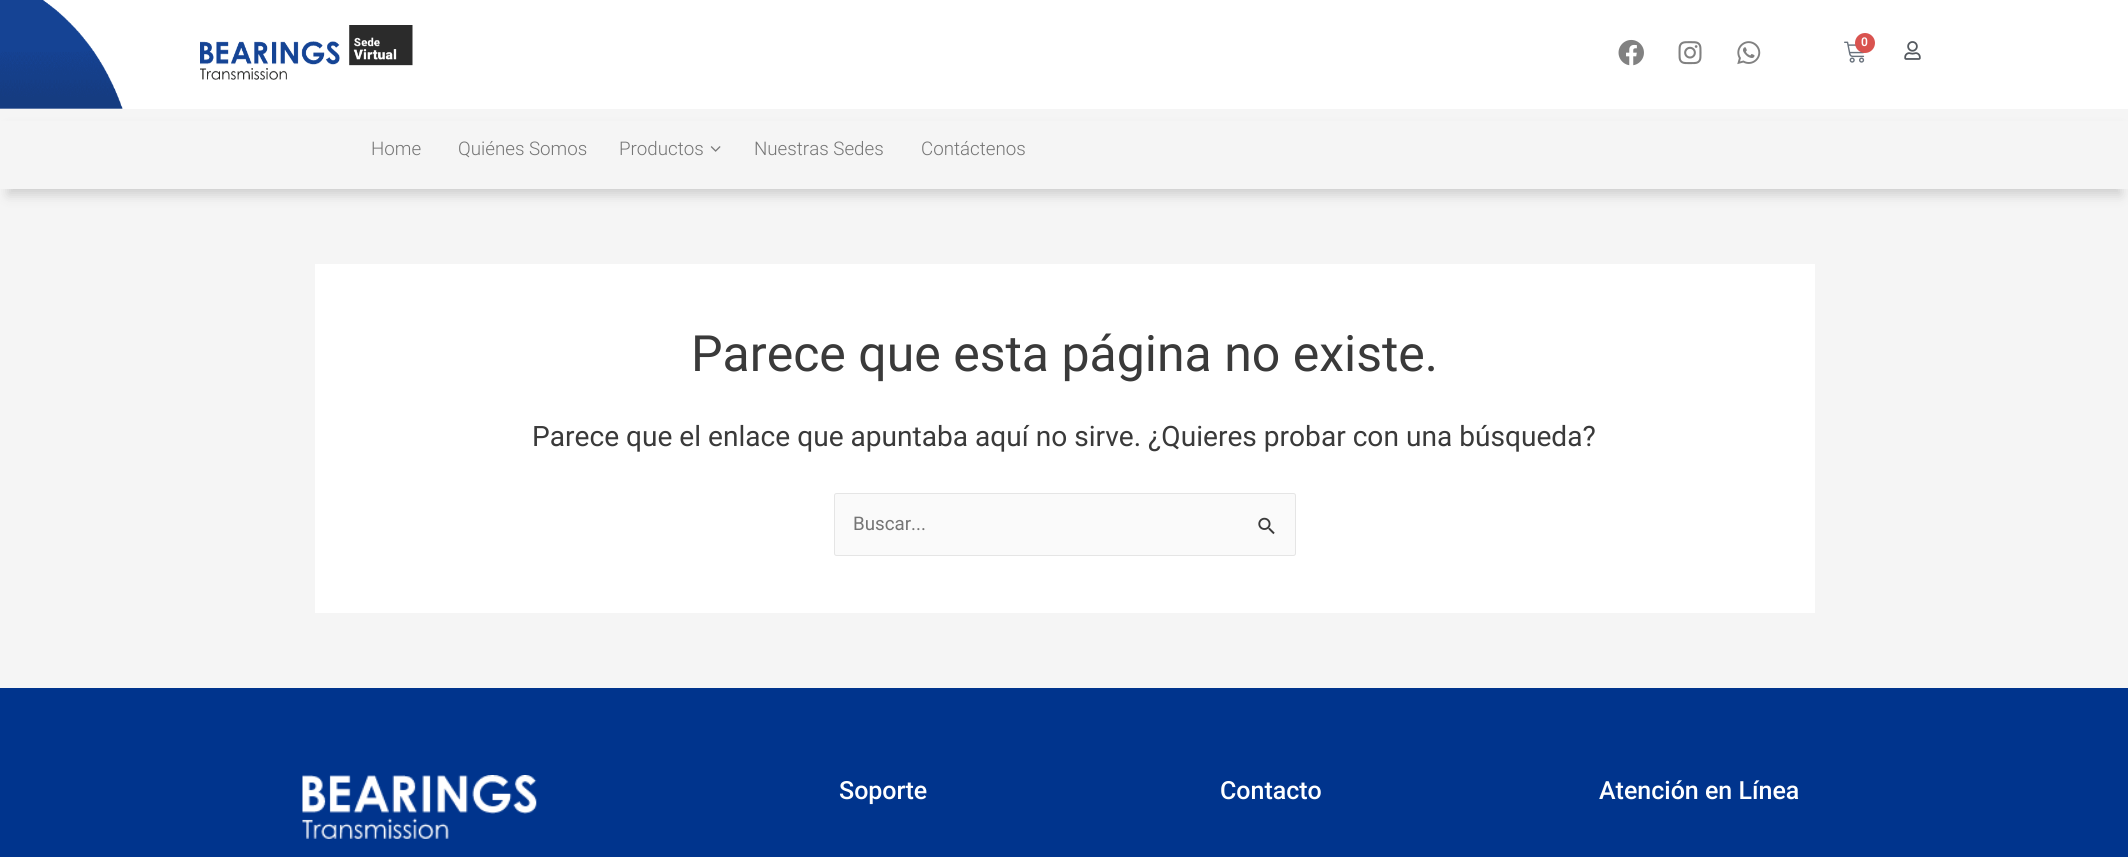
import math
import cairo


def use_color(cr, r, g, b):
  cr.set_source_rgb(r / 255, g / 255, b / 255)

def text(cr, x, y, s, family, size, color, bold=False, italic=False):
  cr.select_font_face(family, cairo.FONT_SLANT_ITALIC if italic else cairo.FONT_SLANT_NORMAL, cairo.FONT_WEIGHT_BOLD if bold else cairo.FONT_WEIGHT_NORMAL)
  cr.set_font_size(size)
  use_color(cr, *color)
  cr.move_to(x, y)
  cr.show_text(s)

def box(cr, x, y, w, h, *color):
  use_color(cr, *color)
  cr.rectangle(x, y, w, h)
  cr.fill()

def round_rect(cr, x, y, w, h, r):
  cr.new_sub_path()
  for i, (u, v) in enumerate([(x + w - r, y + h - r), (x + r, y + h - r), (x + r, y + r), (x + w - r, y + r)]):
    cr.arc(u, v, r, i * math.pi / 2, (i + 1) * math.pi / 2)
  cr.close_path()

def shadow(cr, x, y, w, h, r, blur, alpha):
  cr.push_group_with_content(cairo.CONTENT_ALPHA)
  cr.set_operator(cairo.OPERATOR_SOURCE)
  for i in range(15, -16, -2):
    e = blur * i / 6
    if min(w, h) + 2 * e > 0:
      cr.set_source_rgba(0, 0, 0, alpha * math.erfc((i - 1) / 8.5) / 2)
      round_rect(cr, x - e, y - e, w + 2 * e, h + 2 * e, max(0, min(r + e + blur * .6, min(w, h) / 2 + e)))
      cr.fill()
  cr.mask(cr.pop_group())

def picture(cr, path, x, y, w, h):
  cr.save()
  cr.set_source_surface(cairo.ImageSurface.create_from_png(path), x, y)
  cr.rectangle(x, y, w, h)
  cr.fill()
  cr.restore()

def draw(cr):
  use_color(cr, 245, 245, 245)
  cr.paint()
  box(cr, 0, 0, 2128, 109, 255, 255, 255)
  picture(cr, "img_01.png", 0, 0, 123, 109)
  picture(cr, "img_02.png", 200, 25, 213, 55)
  picture(cr, "img_03.png", 1618, 39, 26, 27)
  picture(cr, "img_04.png", 1678, 41, 24, 24)
  picture(cr, "img_05.png", 1737, 41, 24, 24)
  picture(cr, "img_06.png", 1844, 41, 21, 22)
  use_color(cr, 217, 83, 79)
  cr.arc(1865, 43, 10, 0, 2 * math.pi)
  cr.fill()
  picture(cr, "img_07.png", 1904, 41, 17, 19)
  use_color(cr, 59, 59, 59)
  shadow(cr, 8, 130, 2113, 65, 0, 6, 0.21)
  box(cr, 0, 121, 2128, 68, 245, 245, 245)
  picture(cr, "img_08.png", 710, 146, 11, 6)
  box(cr, 315, 264, 1500, 349, 255, 255, 255)
  use_color(cr, 250, 250, 250)
  round_rect(cr, 834.5, 493.5, 461, 62, 2)
  cr.fill_preserve()
  use_color(cr, 229, 229, 229)
  cr.set_line_width(1)
  cr.stroke()
  picture(cr, "img_09.png", 1258, 517, 17, 18)
  box(cr, 0, 688, 2128, 169, 0, 52, 141)
  picture(cr, "img_10.png", 302, 775, 235, 64)
  text(cr, 1861, 46, "0", "Roboto SemiBold", 12, (255, 255, 255))
  text(cr, 371, 155, "Home", "Roboto Light", 18.75, (117, 117, 117))
  text(cr, 458, 155, "Quiénes Somos", "Roboto Light", 18.75, (117, 117, 117))
  text(cr, 619, 155, "Productos", "Roboto Light", 18.75, (117, 117, 117))
  text(cr, 754, 155, "Nuestras Sedes", "Roboto Light", 18.75, (117, 117, 117))
  text(cr, 921, 155, "Contáctenos", "Roboto Light", 18.75, (117, 117, 117))
  text(cr, 691, 371, "Parece que esta página no existe.", "Roboto", 50, (58, 58, 58))
  text(cr, 532, 446, "Parece que el enlace que apuntaba aquí no sirve. ¿Quieres probar con una búsqueda?", "Roboto", 28.1, (58, 58, 58))
  text(cr, 853, 530, "Buscar...", "Roboto", 18.75, (117, 117, 117))
  text(cr, 839, 799, "Soporte", "Roboto Medium", 25, (255, 255, 255))
  text(cr, 1220, 799, "Contacto", "Roboto Medium", 25, (255, 255, 255))
  text(cr, 1599, 799, "Atención en Línea", "Roboto Medium", 25, (255, 255, 255))


surface = cairo.ImageSurface(cairo.FORMAT_RGB24, 2128, 857)
cr = cairo.Context(surface)
options = cairo.FontOptions()
options.set_hint_metrics(cairo.HINT_METRICS_OFF)
options.set_hint_style(cairo.HINT_STYLE_NONE)
cr.set_font_options(options)
cr.set_miter_limit(4)
draw(cr)
surface.write_to_png("out.png")
